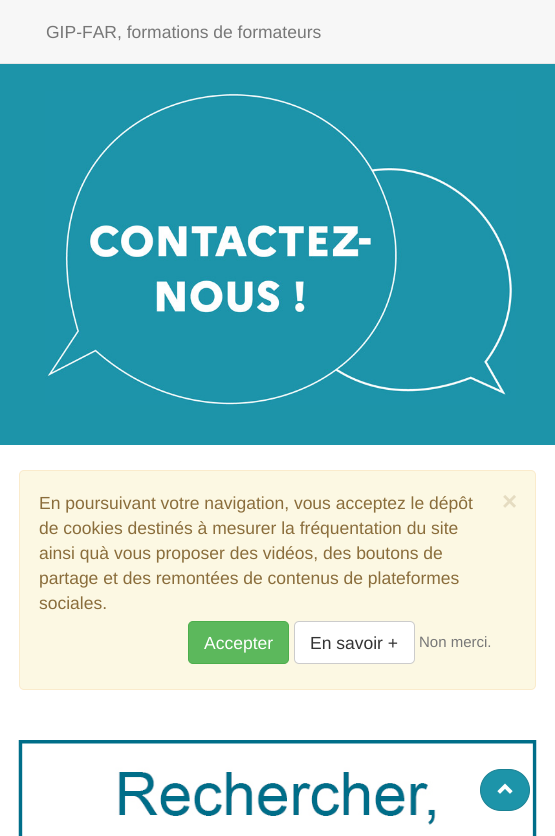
import math
import cairo


def use_color(cr, r, g, b):
  cr.set_source_rgb(r / 255, g / 255, b / 255)

def text(cr, x, y, s, family, size, color, bold=False, italic=False):
  cr.select_font_face(family, cairo.FONT_SLANT_ITALIC if italic else cairo.FONT_SLANT_NORMAL, cairo.FONT_WEIGHT_BOLD if bold else cairo.FONT_WEIGHT_NORMAL)
  cr.set_font_size(size)
  use_color(cr, *color)
  cr.move_to(x, y)
  cr.show_text(s)

def box(cr, x, y, w, h, *color):
  use_color(cr, *color)
  cr.rectangle(x, y, w, h)
  cr.fill()

def round_rect(cr, x, y, w, h, r):
  cr.new_sub_path()
  for i, (u, v) in enumerate([(x + w - r, y + h - r), (x + r, y + h - r), (x + r, y + r), (x + w - r, y + r)]):
    cr.arc(u, v, r, i * math.pi / 2, (i + 1) * math.pi / 2)
  cr.close_path()

def picture(cr, path, x, y, w, h):
  cr.save()
  cr.set_source_surface(cairo.ImageSurface.create_from_png(path), x, y)
  cr.rectangle(x, y, w, h)
  cr.fill()
  cr.restore()

def draw(cr):
  use_color(cr, 255, 255, 255)
  cr.paint()
  box(cr, 0, 0, 555, 63, 247, 247, 247)
  box(cr, 0, 63, 555, 1, 231, 231, 231)
  box(cr, 0, 64, 555, 381, 29, 148, 169)
  picture(cr, "img_01.png", 45, 91, 471, 314)
  use_color(cr, 252, 248, 227)
  round_rect(cr, 19.5, 470.5, 516, 219, 4.5)
  cr.fill_preserve()
  use_color(cr, 250, 235, 204)
  cr.set_line_width(1)
  cr.stroke()
  use_color(cr, 92, 184, 92)
  round_rect(cr, 188.5, 621.5, 100, 42, 4.5)
  cr.fill_preserve()
  use_color(cr, 76, 174, 76)
  cr.stroke()
  use_color(cr, 255, 255, 255)
  round_rect(cr, 294.5, 621.5, 120, 42, 4.5)
  cr.fill_preserve()
  use_color(cr, 204, 204, 204)
  cr.stroke()
  picture(cr, "img_02.png", 18, 740, 519, 96)
  use_color(cr, 29, 148, 169)
  round_rect(cr, 480.5, 769.5, 49, 41, 20.5)
  cr.fill_preserve()
  use_color(cr, 25, 129, 147)
  cr.stroke()
  picture(cr, "img_03.png", 497, 783, 16, 11)
  text(cr, 46, 38, "GIP-FAR, formations de formateurs", "Liberation Sans", 17.5, (119, 119, 119))
  text(cr, 39, 509, "En poursuivant votre navigation, vous acceptez le dépôt", "Liberation Sans", 17.5, (138, 109, 59))
  text(cr, 39, 534, "de cookies destinés à mesurer la fréquentation du site", "Liberation Sans", 17.5, (138, 109, 59))
  text(cr, 39, 559, "ainsi quà vous proposer des vidéos, des boutons de", "Liberation Sans", 17.5, (138, 109, 59))
  text(cr, 39, 584, "partage et des remontées de contenus de plateformes", "Liberation Sans", 17.5, (138, 109, 59))
  text(cr, 39, 609, "sociales.", "Liberation Sans", 17.5, (138, 109, 59))
  text(cr, 502, 510, "×", "Liberation Sans", 26, (229, 220, 193), bold=True)
  text(cr, 204, 649, "Accepter", "Liberation Sans", 17.5, (255, 255, 255))
  text(cr, 310, 649, "En savoir +", "Liberation Sans", 17.5, (51, 51, 51))
  text(cr, 419, 647, "Non merci.", "Liberation Sans", 15, (119, 119, 119))


surface = cairo.ImageSurface(cairo.FORMAT_RGB24, 555, 836)
cr = cairo.Context(surface)
options = cairo.FontOptions()
options.set_hint_metrics(cairo.HINT_METRICS_OFF)
options.set_hint_style(cairo.HINT_STYLE_NONE)
cr.set_font_options(options)
cr.set_miter_limit(4)
draw(cr)
surface.write_to_png("out.png")
